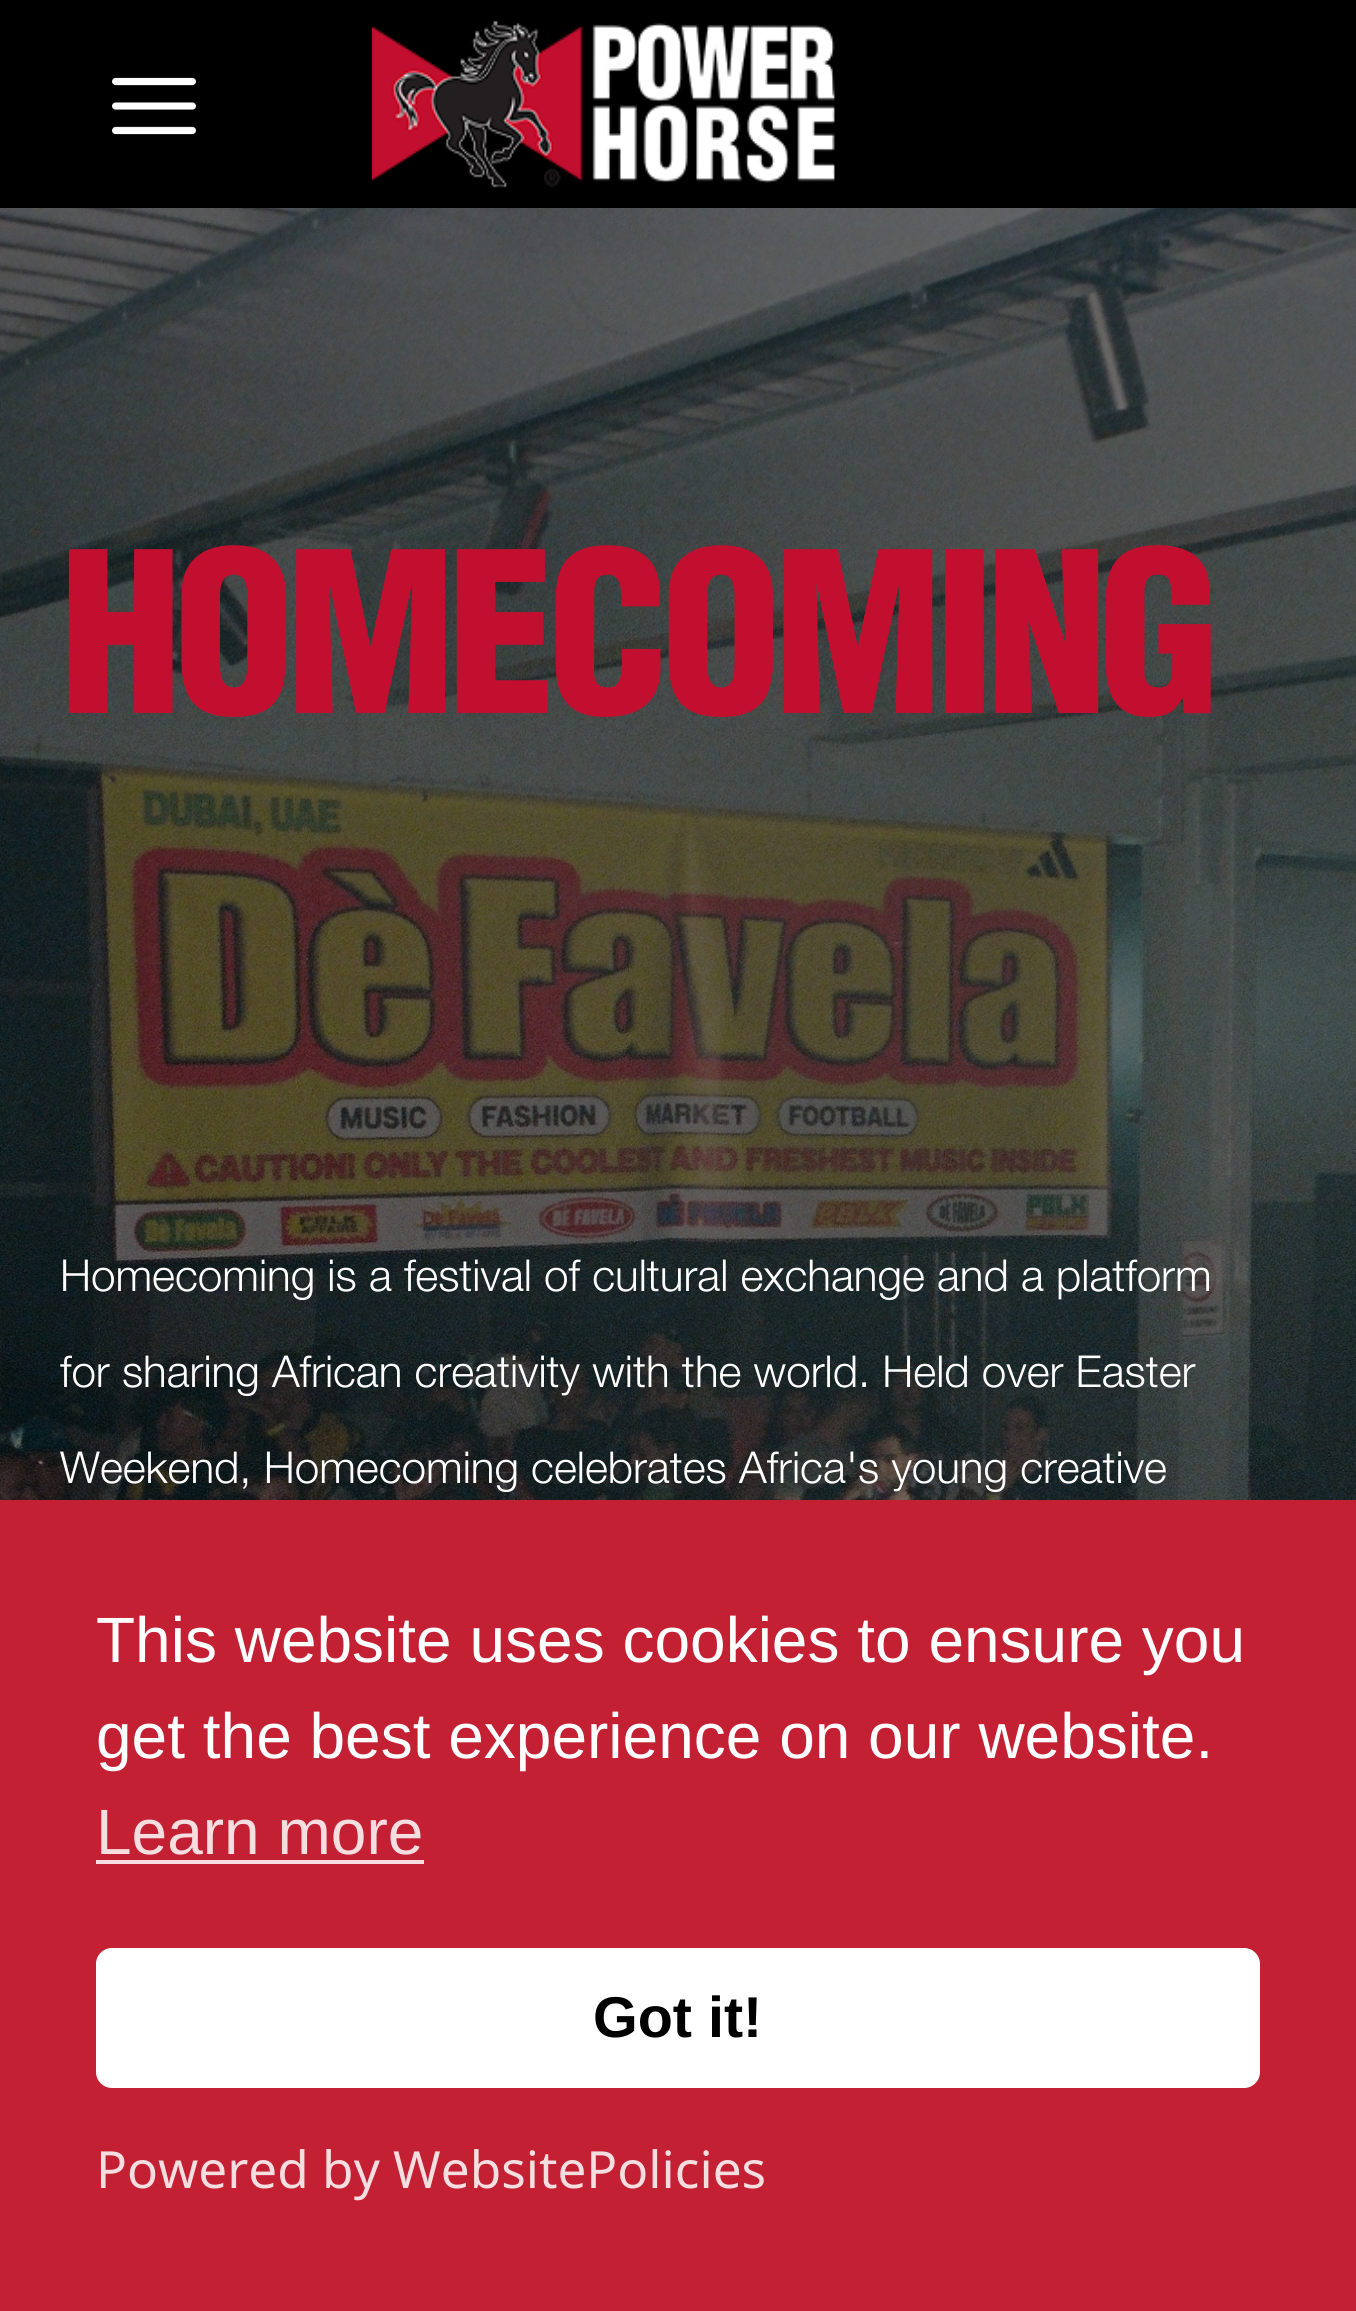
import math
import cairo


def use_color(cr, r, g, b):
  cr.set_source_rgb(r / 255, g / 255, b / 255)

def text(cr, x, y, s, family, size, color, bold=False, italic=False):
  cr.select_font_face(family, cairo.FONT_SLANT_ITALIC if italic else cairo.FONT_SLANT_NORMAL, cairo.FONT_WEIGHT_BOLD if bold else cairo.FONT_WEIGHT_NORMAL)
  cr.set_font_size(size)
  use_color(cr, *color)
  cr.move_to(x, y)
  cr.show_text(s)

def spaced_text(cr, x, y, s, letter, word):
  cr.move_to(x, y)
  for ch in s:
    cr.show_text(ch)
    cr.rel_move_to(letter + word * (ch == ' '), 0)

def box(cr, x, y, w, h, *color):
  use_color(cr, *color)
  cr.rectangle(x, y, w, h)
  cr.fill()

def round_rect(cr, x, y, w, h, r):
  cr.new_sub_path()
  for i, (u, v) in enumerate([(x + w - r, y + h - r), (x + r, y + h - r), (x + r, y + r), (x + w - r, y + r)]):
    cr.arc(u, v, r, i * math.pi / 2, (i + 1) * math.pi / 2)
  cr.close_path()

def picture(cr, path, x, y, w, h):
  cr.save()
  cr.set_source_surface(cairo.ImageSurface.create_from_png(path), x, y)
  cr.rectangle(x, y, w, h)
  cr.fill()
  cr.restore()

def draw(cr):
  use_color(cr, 255, 255, 255)
  cr.paint()
  box(cr, 0, 0, 1356, 208, 0, 0, 0)
  picture(cr, "img_01.png", 112, 77, 84, 58)
  picture(cr, "img_02.png", 372, 20, 463, 168)
  picture(cr, "img_03.png", 0, 208, 1356, 1292)
  box(cr, 0, 1500, 1356, 811, 195, 32, 51)
  box(cr, 96, 1860, 328, 4, 246, 222, 224)
  use_color(cr, 255, 255, 255)
  round_rect(cr, 96, 1948, 1164, 140, 16)
  cr.fill()
  cr.select_font_face("Helvetica Black")
  cr.set_font_size(218.5)
  use_color(cr, 194, 15, 47)
  spaced_text(cr, 60, 713, "HOMECOMING", -8.75, 0)
  text(cr, 60, 1291, "Homecoming is a festival of cultural exchange and a platform", "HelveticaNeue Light", 44, (255, 255, 255))
  text(cr, 60, 1387, "for sharing African creativity with the world. Held over Easter", "HelveticaNeue Light", 44, (255, 255, 255))
  text(cr, 60, 1483, "Weekend, Homecoming celebrates Africa's young creative", "HelveticaNeue Light", 44, (255, 255, 255))
  text(cr, 96, 1662, "This website uses cookies to ensure you", "Liberation Sans", 64, (255, 255, 255))
  text(cr, 96, 1758, "get the best experience on our website.", "Liberation Sans", 64, (255, 255, 255))
  text(cr, 96, 1854, "Learn more", "Liberation Sans", 64, (246, 222, 224))
  text(cr, 593, 2037, "Got it!", "Liberation Sans", 57.5, (0, 0, 0), bold=True)
  text(cr, 96, 2188, "Powered by WebsitePolicies", "Noto Sans", 51.25, (246, 222, 224))


surface = cairo.ImageSurface(cairo.FORMAT_RGB24, 1356, 2311)
cr = cairo.Context(surface)
options = cairo.FontOptions()
options.set_hint_metrics(cairo.HINT_METRICS_OFF)
options.set_hint_style(cairo.HINT_STYLE_NONE)
cr.set_font_options(options)
cr.set_miter_limit(4)
draw(cr)
surface.write_to_png("out.png")
